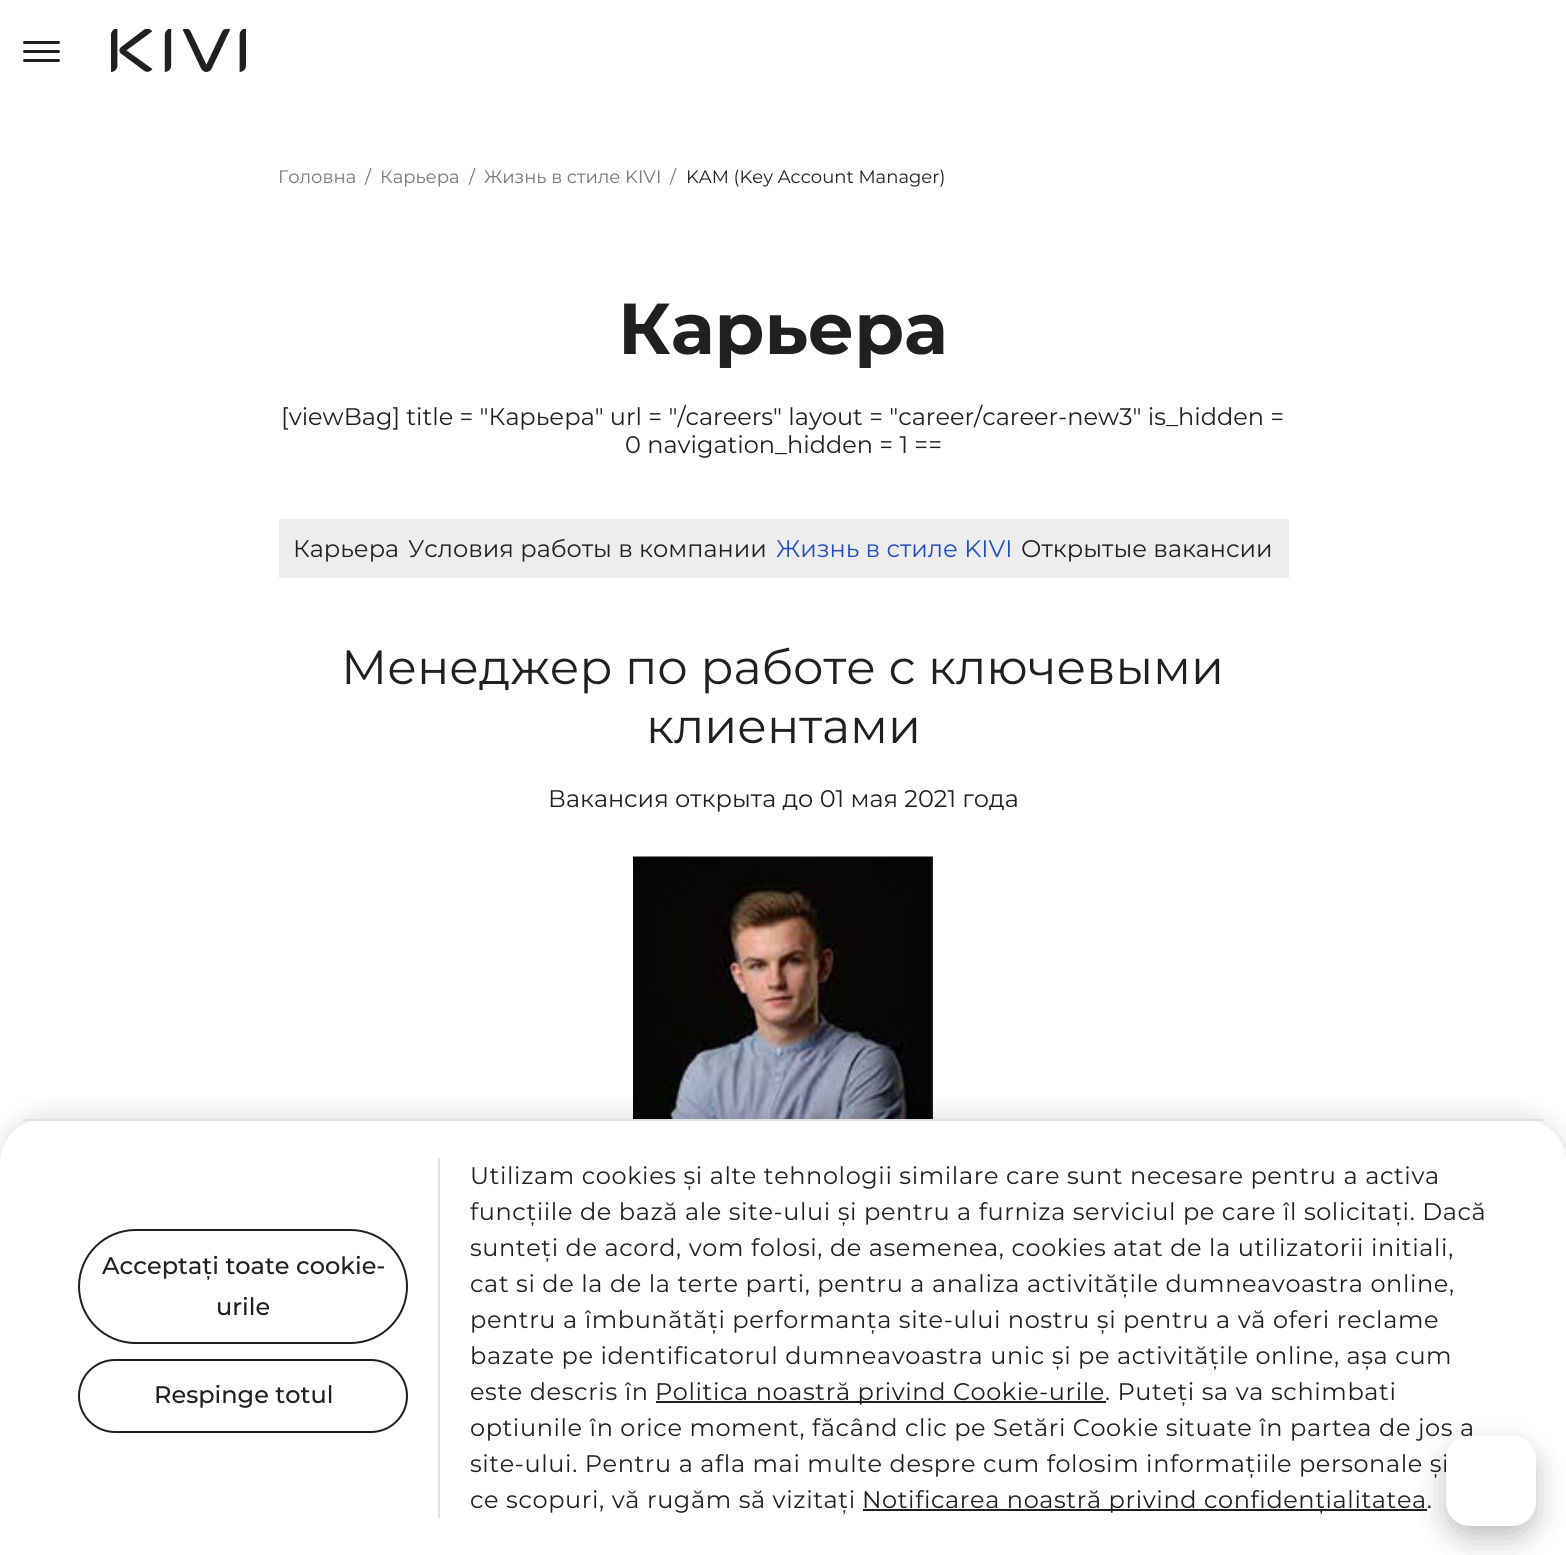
import math
import cairo


def use_color(cr, r, g, b):
  cr.set_source_rgb(r / 255, g / 255, b / 255)

def text(cr, x, y, s, family, size, color, bold=False, italic=False):
  cr.select_font_face(family, cairo.FONT_SLANT_ITALIC if italic else cairo.FONT_SLANT_NORMAL, cairo.FONT_WEIGHT_BOLD if bold else cairo.FONT_WEIGHT_NORMAL)
  cr.set_font_size(size)
  use_color(cr, *color)
  cr.move_to(x, y)
  cr.show_text(s)

def spaced_text(cr, x, y, s, letter, word):
  cr.move_to(x, y)
  for ch in s:
    cr.show_text(ch)
    cr.rel_move_to(letter + word * (ch == ' '), 0)

def box(cr, x, y, w, h, *color):
  use_color(cr, *color)
  cr.rectangle(x, y, w, h)
  cr.fill()

def round_rect(cr, x, y, w, h, r):
  cr.new_sub_path()
  for i, (u, v) in enumerate([(x + w - r, y + h - r), (x + r, y + h - r), (x + r, y + r), (x + w - r, y + r)]):
    cr.arc(u, v, r, i * math.pi / 2, (i + 1) * math.pi / 2)
  cr.close_path()

def shadow(cr, x, y, w, h, r, blur, alpha):
  cr.push_group_with_content(cairo.CONTENT_ALPHA)
  cr.set_operator(cairo.OPERATOR_SOURCE)
  for i in range(15, -16, -2):
    e = blur * i / 6
    if min(w, h) + 2 * e > 0:
      cr.set_source_rgba(0, 0, 0, alpha * math.erfc((i - 1) / 8.5) / 2)
      round_rect(cr, x - e, y - e, w + 2 * e, h + 2 * e, max(0, min(r + e + blur * .6, min(w, h) / 2 + e)))
      cr.fill()
  cr.mask(cr.pop_group())

def picture(cr, path, x, y, w, h):
  cr.save()
  cr.set_source_surface(cairo.ImageSurface.create_from_png(path), x, y)
  cr.rectangle(x, y, w, h)
  cr.fill()
  cr.restore()

def draw(cr):
  use_color(cr, 255, 255, 255)
  cr.paint()
  use_color(cr, 32, 32, 32)
  round_rect(cr, 23, 41, 37, 3, 1.5)
  cr.fill()
  round_rect(cr, 23, 50, 37, 3, 1.5)
  cr.fill()
  round_rect(cr, 23, 59, 37, 3, 1.5)
  cr.fill()
  picture(cr, "img_01.png", 111, 29, 135, 43)
  box(cr, 279, 519, 1010, 59, 237, 237, 237)
  picture(cr, "img_02.png", 633, 856, 300, 263)
  use_color(cr, 0, 0, 0)
  shadow(cr, 0, 1119, 1566, 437, 45, 15, 0.15)
  use_color(cr, 255, 255, 255)
  cr.new_path()
  cr.move_to(45, 1119)
  cr.line_to(1521, 1119)
  cr.curve_to(1546, 1119, 1566, 1139, 1566, 1164)
  cr.line_to(1566, 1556)
  cr.line_to(0, 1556)
  cr.line_to(0, 1164)
  cr.curve_to(0, 1139, 20, 1119, 45, 1119)
  cr.close_path()
  cr.fill()
  box(cr, 23, 1119, 1521, 2, 224, 224, 224)
  round_rect(cr, 79, 1230, 328, 113, 56.5)
  use_color(cr, 32, 32, 32)
  cr.stroke()
  round_rect(cr, 79, 1360, 328, 72, 36)
  cr.stroke()
  box(cr, 438, 1158, 2, 360, 224, 224, 224)
  box(cr, 656, 1401, 450, 2, 32, 32, 32)
  box(cr, 863, 1509, 564, 2, 32, 32, 32)
  use_color(cr, 0, 0, 0)
  shadow(cr, 1446, 1448, 90, 90, 24, 15, 0.25)
  text(cr, 278, 183, "Головна", "Montserrat", 18, (118, 118, 118))
  text(cr, 365, 183, "/", "Montserrat", 18, (118, 118, 118))
  text(cr, 380, 183, "Карьера", "Montserrat", 18, (118, 118, 118))
  text(cr, 469, 183, "/", "Montserrat", 18, (118, 118, 118))
  text(cr, 484, 183, "Жизнь в стиле KIVI", "Montserrat", 18, (118, 118, 118))
  text(cr, 670, 183, "/", "Montserrat", 18, (118, 118, 118))
  text(cr, 686, 183, "KAM (Key Account Manager)", "Montserrat", 18, (32, 32, 32))
  text(cr, 618, 354, "Карьера", "Montserrat", 72, (32, 32, 32), bold=True)
  text(cr, 281, 425, "[viewBag] title = \"Карьера\" url = \"/careers\" layout = \"career/career-new3\" is_hidden =", "Montserrat", 24, (32, 32, 32))
  text(cr, 625, 453, "0 navigation_hidden = 1 ==", "Montserrat", 24, (32, 32, 32))
  text(cr, 293, 557, "Карьера", "Montserrat", 24, (32, 32, 32))
  text(cr, 408, 557, "Условия работы в компании", "Montserrat", 24, (32, 32, 32))
  text(cr, 776, 557, "Жизнь в стиле KIVI", "Montserrat", 24, (34, 78, 189))
  text(cr, 1021, 557, "Открытые вакансии", "Montserrat", 24, (32, 32, 32))
  text(cr, 341, 684, "Менеджер по работе с ключевыми", "Montserrat", 48, (32, 32, 32))
  text(cr, 646, 743, "клиентами", "Montserrat", 48, (32, 32, 32))
  text(cr, 548, 807, "Вакансия открыта до 01 мая 2021 года", "Montserrat", 24, (32, 32, 32))
  text(cr, 102, 1274, "Acceptați toate cookie-", "Montserrat Medium", 24, (32, 32, 32))
  text(cr, 216, 1315, "urile", "Montserrat Medium", 24, (32, 32, 32))
  text(cr, 154, 1403, "Respinge totul", "Montserrat Medium", 24, (32, 32, 32))
  cr.select_font_face("Montserrat")
  spaced_text(cr, 470, 1184, "Utilizam cookies și alte tehnologii similare care sunt necesare pentru a activa", 0.6, 0)
  spaced_text(cr, 470, 1220, "funcțiile de bază ale site-ului și pentru a furniza serviciul pe care îl solicitați. Dacă", 0.6, 0)
  spaced_text(cr, 470, 1256, "sunteți de acord, vom folosi, de asemenea, cookies atat de la utilizatorii initiali,", 0.6, 0)
  spaced_text(cr, 470, 1292, "cat si de la de la terte parti, pentru a analiza activitățile dumneavoastra online,", 0.6, 0)
  spaced_text(cr, 470, 1328, "pentru a îmbunătăți performanța site-ului nostru și pentru a vă oferi reclame", 0.6, 0)
  spaced_text(cr, 470, 1364, "bazate pe identificatorul dumneavoastra unic și pe activitățile online, așa cum", 0.6, 0)
  spaced_text(cr, 470, 1400, "este descris în", 0.6, 0)
  spaced_text(cr, 655, 1400, "Politica noastră privind Cookie-urile. Puteți sa va schimbati", 0.6, 0)
  spaced_text(cr, 470, 1436, "optiunile în orice moment, făcând clic pe Setări Cookie situate în partea de jos a", 0.6, 0)
  spaced_text(cr, 470, 1472, "site-ului. Pentru a afla mai multe despre cum folosim informațiile personale și", 0.6, 0)
  spaced_text(cr, 470, 1508, "ce scopuri, vă rugăm să vizitați", 0.6, 0)
  spaced_text(cr, 862, 1508, "Notificarea noastră privind confidențialitatea.", 0.6, 0)
  use_color(cr, 255, 255, 255)
  round_rect(cr, 1446, 1436, 90, 90, 24)
  cr.fill()
  round_rect(cr, 1446, 1436, 90, 85, 24)
  cr.fill()


surface = cairo.ImageSurface(cairo.FORMAT_RGB24, 1566, 1555)
cr = cairo.Context(surface)
options = cairo.FontOptions()
options.set_hint_metrics(cairo.HINT_METRICS_OFF)
options.set_hint_style(cairo.HINT_STYLE_NONE)
cr.set_font_options(options)
cr.set_miter_limit(4)
draw(cr)
surface.write_to_png("out.png")
